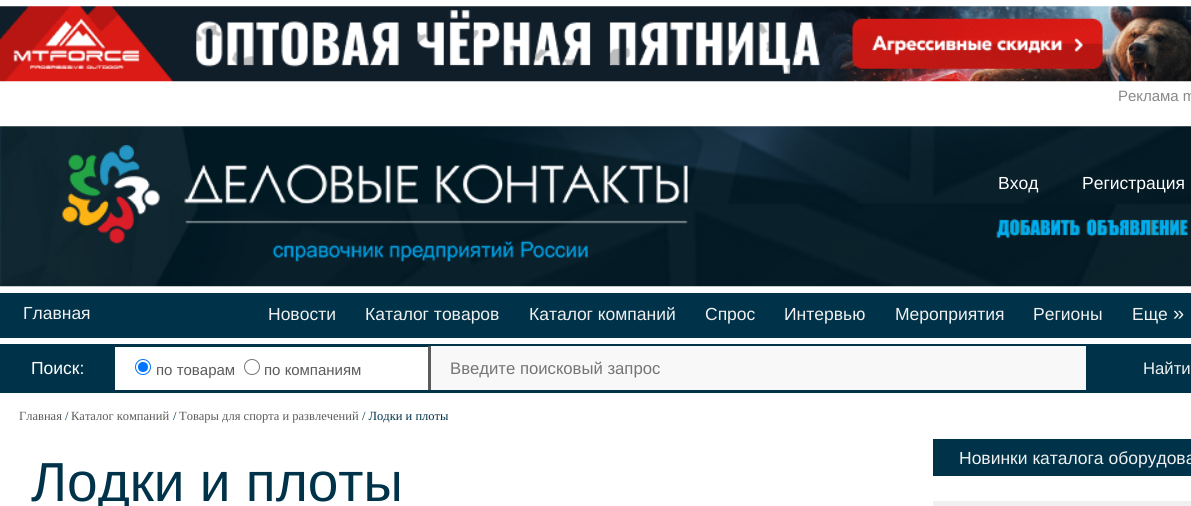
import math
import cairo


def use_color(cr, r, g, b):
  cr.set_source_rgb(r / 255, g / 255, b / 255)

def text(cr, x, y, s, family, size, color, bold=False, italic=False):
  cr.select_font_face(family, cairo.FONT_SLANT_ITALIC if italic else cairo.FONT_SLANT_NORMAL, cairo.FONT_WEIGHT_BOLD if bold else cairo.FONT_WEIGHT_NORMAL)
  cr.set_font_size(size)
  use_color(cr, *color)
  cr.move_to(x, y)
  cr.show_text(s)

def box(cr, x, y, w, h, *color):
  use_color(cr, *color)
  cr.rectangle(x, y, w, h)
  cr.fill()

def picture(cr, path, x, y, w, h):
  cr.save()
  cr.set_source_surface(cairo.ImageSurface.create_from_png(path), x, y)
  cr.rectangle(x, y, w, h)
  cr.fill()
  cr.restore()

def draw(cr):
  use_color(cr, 255, 255, 255)
  cr.paint()
  picture(cr, "img_01.png", 0, 6, 1191, 76)
  picture(cr, "img_02.png", 0, 126, 1191, 161)
  picture(cr, "img_03.png", 62, 145, 626, 117)
  picture(cr, "img_04.png", 996, 218, 192, 21)
  box(cr, 0, 293, 1191, 45, 0, 51, 73)
  cr.rectangle(1.5, 345.5, 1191, 46)
  cr.set_line_width(3)
  cr.stroke()
  box(cr, 3, 347, 112, 43, 0, 51, 73)
  cr.arc(143, 367, 7.5, 0, 2 * math.pi)
  use_color(cr, 0, 117, 255)
  cr.set_line_width(1)
  cr.stroke()
  cr.arc(143, 367, 5, 0, 2 * math.pi)
  cr.fill()
  cr.arc(252, 367, 7.5, 0, 2 * math.pi)
  use_color(cr, 118, 118, 118)
  cr.stroke()
  box(cr, 431, 346, 655, 44, 248, 248, 248)
  box(cr, 428, 346, 3, 44, 91, 91, 91)
  box(cr, 1086, 347, 105, 43, 0, 51, 73)
  box(cr, 933, 439, 258, 37, 0, 51, 73)
  box(cr, 933, 501, 258, 5, 240, 240, 240)
  text(cr, 1118, 101, "Реклама m", "Liberation Sans", 15, (136, 136, 136))
  text(cr, 998, 189, "Вход", "Liberation Sans", 17.5, (255, 255, 255))
  text(cr, 1082, 189, "Регистрация", "Liberation Sans", 17.5, (255, 255, 255))
  text(cr, 23, 319, "Главная", "Liberation Sans", 17.5, (240, 240, 240))
  text(cr, 268, 320, "Новости", "Liberation Sans", 17.5, (240, 240, 240))
  text(cr, 365, 320, "Каталог товаров", "Liberation Sans", 17.5, (240, 240, 240))
  text(cr, 529, 320, "Каталог компаний", "Liberation Sans", 17.5, (240, 240, 240))
  text(cr, 705, 320, "Спрос", "Liberation Sans", 17.5, (240, 240, 240))
  text(cr, 784, 320, "Интервью", "Liberation Sans", 17.5, (240, 240, 240))
  text(cr, 895, 320, "Мероприятия", "Liberation Sans", 17.5, (240, 240, 240))
  text(cr, 1033, 320, "Регионы", "Liberation Sans", 17.5, (240, 240, 240))
  text(cr, 1132, 320, "Еще", "Liberation Sans", 17.5, (240, 240, 240))
  text(cr, 1173, 320, "»", "Liberation Sans", 20, (240, 240, 240))
  text(cr, 31, 374, "Поиск:", "Liberation Sans", 17.5, (255, 255, 255))
  text(cr, 156, 375, "по товарам", "Liberation Sans", 15, (91, 91, 91))
  text(cr, 264, 375, "по компаниям", "Liberation Sans", 15, (91, 91, 91))
  text(cr, 450, 374, "Введите поисковый запрос", "Liberation Sans", 16.7, (117, 117, 117))
  text(cr, 1143, 374, "Найти", "Liberation Sans", 16.7, (240, 240, 240))
  text(cr, 19, 420, "Главная", "Liberation Serif", 12.5, (91, 91, 91))
  text(cr, 65, 420, "/", "Liberation Serif", 12.5, (0, 51, 73))
  text(cr, 71, 420, "Каталог компаний", "Liberation Serif", 12.5, (91, 91, 91))
  text(cr, 173, 420, "/", "Liberation Serif", 12.5, (0, 51, 73))
  text(cr, 179, 420, "Товары для спорта и развлечений", "Liberation Serif", 12.5, (91, 91, 91))
  text(cr, 362, 420, "/ Лодки и плоты", "Liberation Serif", 12.5, (0, 51, 73))
  text(cr, 959, 464, "Новинки каталога оборудова", "Liberation Sans", 17.5, (240, 240, 240))
  text(cr, 31, 501, "Лодки и плоты", "Liberation Sans", 55, (0, 51, 73))


surface = cairo.ImageSurface(cairo.FORMAT_RGB24, 1191, 506)
cr = cairo.Context(surface)
options = cairo.FontOptions()
options.set_hint_metrics(cairo.HINT_METRICS_OFF)
options.set_hint_style(cairo.HINT_STYLE_NONE)
cr.set_font_options(options)
cr.set_miter_limit(4)
draw(cr)
surface.write_to_png("out.png")
